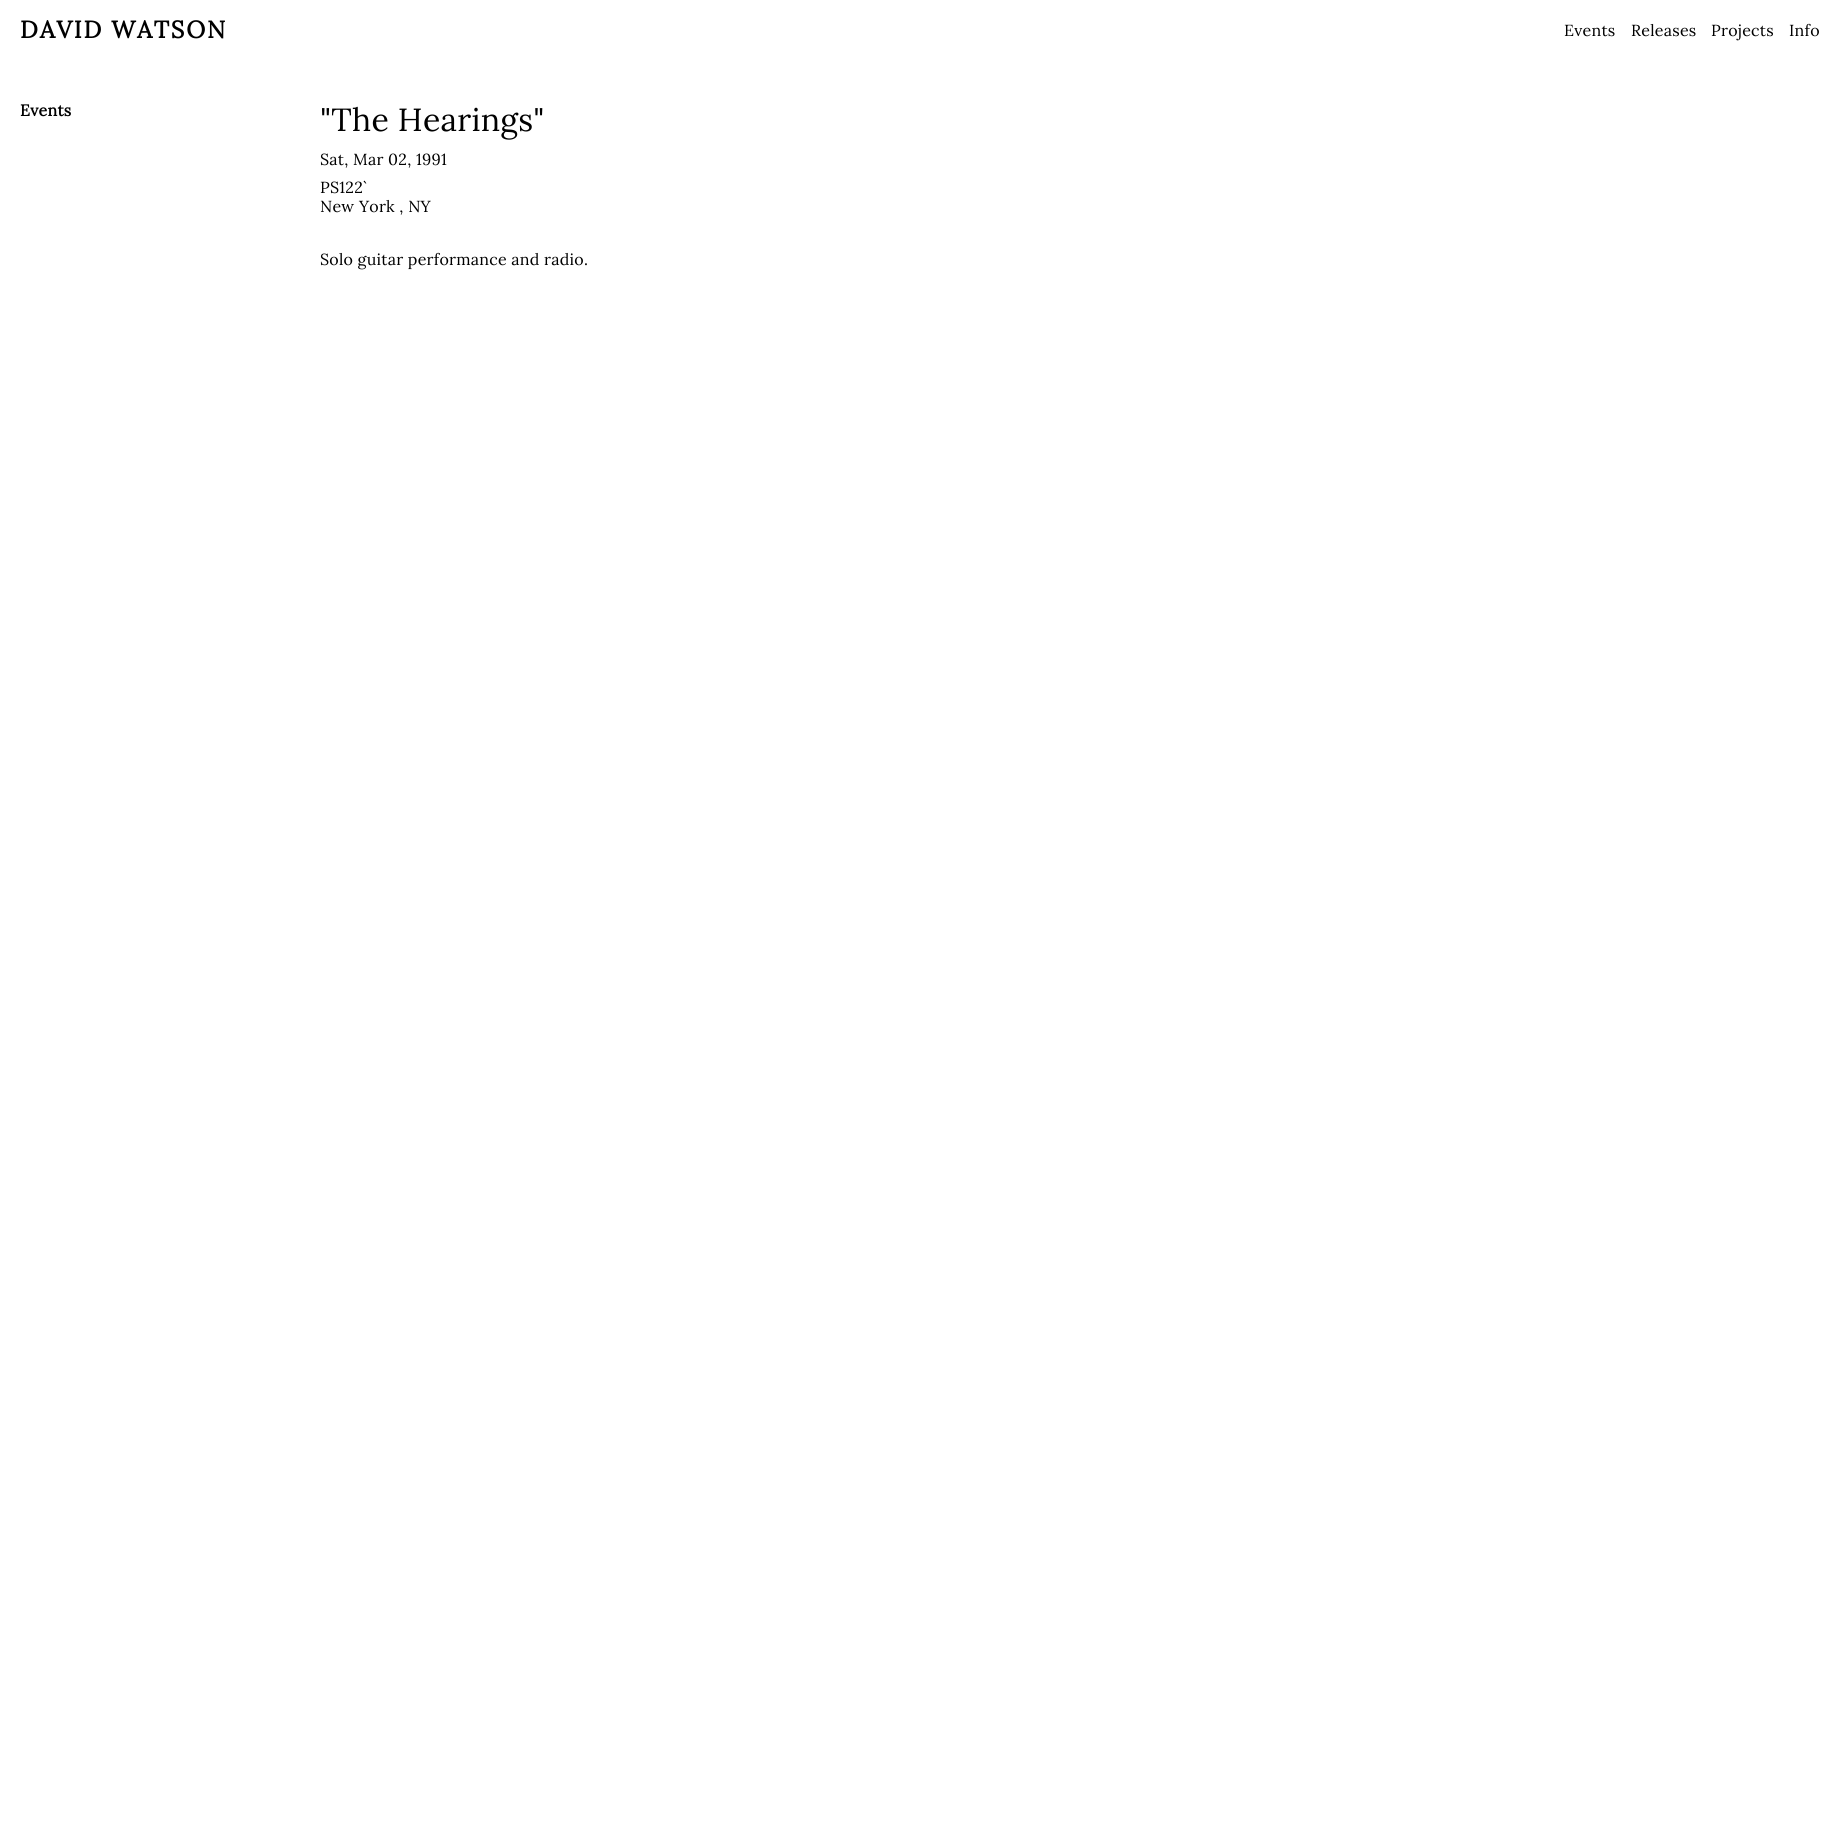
import math
import cairo


def use_color(cr, r, g, b):
  cr.set_source_rgb(r / 255, g / 255, b / 255)

def spaced_text(cr, x, y, s, letter, word):
  cr.move_to(x, y)
  for ch in s:
    cr.show_text(ch)
    cr.rel_move_to(letter + word * (ch == ' '), 0)

def draw(cr):
  use_color(cr, 255, 255, 255)
  cr.paint()
  cr.select_font_face("Lora", cairo.FONT_SLANT_NORMAL, cairo.FONT_WEIGHT_BOLD)
  cr.set_font_size(24)
  use_color(cr, 0, 0, 0)
  spaced_text(cr, 20, 38, "DAVID WATSON", 1.75, 0)
  cr.select_font_face("Lora")
  cr.set_font_size(16)
  spaced_text(cr, 1564, 36, "Events", 0.25, 0)
  spaced_text(cr, 1631, 36, "Releases", 0.25, 0)
  spaced_text(cr, 1711, 36, "Projects", 0.25, 0)
  spaced_text(cr, 1789, 36, "Info", 0.25, 0)
  cr.select_font_face("Lora", cairo.FONT_SLANT_NORMAL, cairo.FONT_WEIGHT_BOLD)
  spaced_text(cr, 20, 116, "Events", 0.25, 0)
  cr.select_font_face("Lora")
  cr.set_font_size(32)
  spaced_text(cr, 320, 131, "\"The Hearings\"", 0.25, 0)
  cr.set_font_size(16)
  spaced_text(cr, 320, 165, "Sat, Mar 02, 1991", 0.25, 0)
  spaced_text(cr, 320, 193, "PS122`", 0.25, 0)
  spaced_text(cr, 320, 212, "New York , NY", 0.25, 0)
  spaced_text(cr, 320, 265, "Solo guitar performance and radio.", 0.25, 0)


surface = cairo.ImageSurface(cairo.FORMAT_RGB24, 1840, 1840)
cr = cairo.Context(surface)
options = cairo.FontOptions()
options.set_hint_metrics(cairo.HINT_METRICS_OFF)
options.set_hint_style(cairo.HINT_STYLE_NONE)
cr.set_font_options(options)
cr.set_miter_limit(4)
draw(cr)
surface.write_to_png("out.png")
